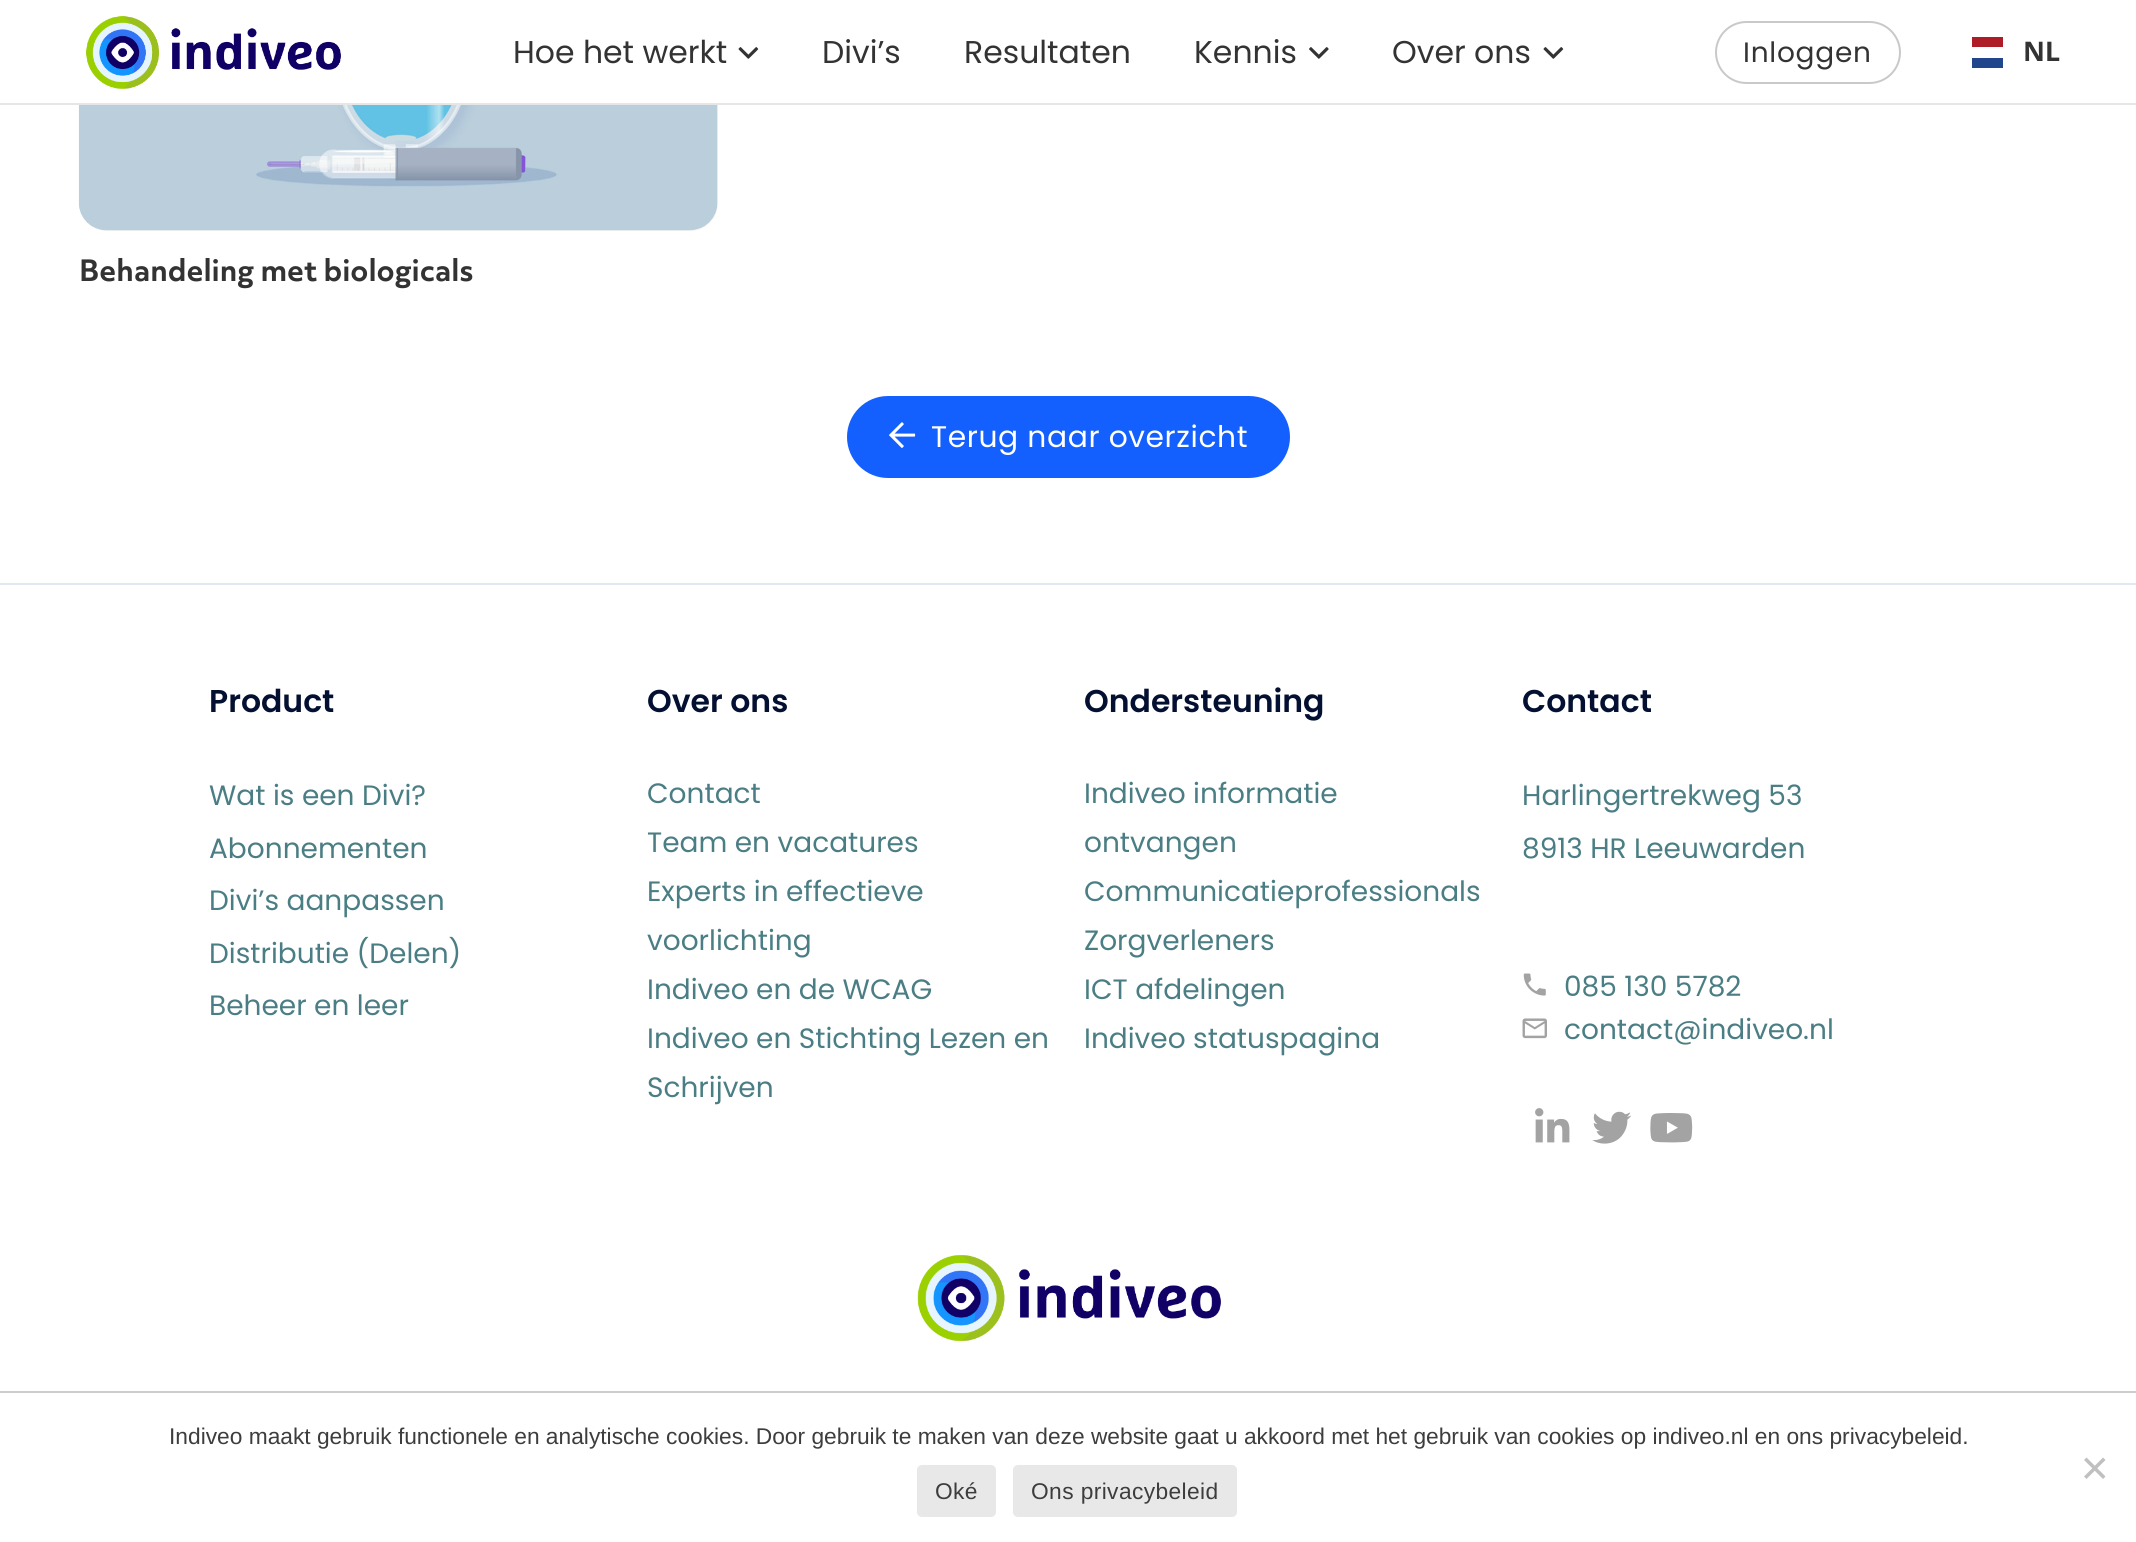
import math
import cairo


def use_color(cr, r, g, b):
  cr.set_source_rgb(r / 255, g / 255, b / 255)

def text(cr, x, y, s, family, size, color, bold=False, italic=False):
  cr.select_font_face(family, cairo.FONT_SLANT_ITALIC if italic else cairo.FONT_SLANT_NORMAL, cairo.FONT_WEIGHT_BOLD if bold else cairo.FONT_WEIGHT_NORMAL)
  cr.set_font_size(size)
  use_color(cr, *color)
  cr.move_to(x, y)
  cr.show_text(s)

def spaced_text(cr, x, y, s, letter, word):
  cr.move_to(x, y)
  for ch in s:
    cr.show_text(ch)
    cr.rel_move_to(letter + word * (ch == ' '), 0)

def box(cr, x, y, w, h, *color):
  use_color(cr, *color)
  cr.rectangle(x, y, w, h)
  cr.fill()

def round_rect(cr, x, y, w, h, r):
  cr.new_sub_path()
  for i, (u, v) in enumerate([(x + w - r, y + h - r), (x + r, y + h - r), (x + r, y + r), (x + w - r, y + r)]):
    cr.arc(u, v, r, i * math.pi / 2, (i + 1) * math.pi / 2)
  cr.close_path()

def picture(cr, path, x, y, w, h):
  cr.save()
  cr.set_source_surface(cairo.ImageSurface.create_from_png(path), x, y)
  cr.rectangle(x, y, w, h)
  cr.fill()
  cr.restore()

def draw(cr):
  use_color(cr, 255, 255, 255)
  cr.paint()
  use_color(cr, 245, 245, 245)
  round_rect(cr, 79, -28, 639, 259, 28)
  cr.fill()
  box(cr, 79, 0, 639, 103, 255, 255, 255)
  box(cr, 0, 103, 2136, 2, 230, 230, 230)
  picture(cr, "img_01.png", 86, 16, 255, 73)
  picture(cr, "img_02.png", 738, 47, 21, 12)
  picture(cr, "img_03.png", 1309, 47, 20, 12)
  picture(cr, "img_02.png", 1543, 47, 21, 12)
  round_rect(cr, 1716, 22, 184, 61, 30.5)
  use_color(cr, 201, 201, 201)
  cr.stroke()
  box(cr, 1972, 37, 31, 10, 174, 28, 40)
  box(cr, 1972, 58, 31, 10, 33, 70, 139)
  picture(cr, "img_04.png", 78, 105, 640, 126)
  use_color(cr, 20, 96, 255)
  round_rect(cr, 847, 396, 443, 82, 41)
  cr.fill()
  picture(cr, "img_05.png", 889, 422, 27, 26)
  box(cr, 0, 583, 2136, 2, 225, 234, 242)
  picture(cr, "img_06.png", 1523, 973, 23, 23)
  picture(cr, "img_07.png", 1522, 1018, 25, 21)
  picture(cr, "img_08.png", 1535, 1108, 35, 35)
  picture(cr, "img_09.png", 1592, 1111, 40, 33)
  picture(cr, "img_10.png", 1650, 1113, 43, 30)
  picture(cr, "img_11.png", 917, 1255, 304, 87)
  box(cr, 0, 1391, 2136, 2, 204, 204, 204)
  use_color(cr, 192, 192, 192)
  cr.new_path()
  cr.move_to(2103, 1457.5)
  cr.line_to(2105.5, 1460)
  cr.line_to(2086.5, 1479)
  cr.line_to(2084, 1476.5)
  cr.close_path()
  cr.fill()
  cr.new_path()
  cr.move_to(2084, 1460)
  cr.line_to(2086.5, 1457.5)
  cr.line_to(2105.5, 1476.5)
  cr.line_to(2103, 1479)
  cr.close_path()
  cr.fill()
  use_color(cr, 232, 232, 232)
  round_rect(cr, 917, 1465, 79, 52, 5)
  cr.fill()
  round_rect(cr, 1013, 1465, 224, 52, 5)
  cr.fill()
  text(cr, 513, 63, "Hoe het werkt", "Poppins", 31.5, (51, 51, 51))
  text(cr, 822, 63, "Divi’s", "Poppins", 31.5, (51, 51, 51))
  text(cr, 964, 63, "Resultaten", "Poppins", 31.5, (51, 51, 51))
  text(cr, 1194, 63, "Kennis", "Poppins", 31.5, (51, 51, 51))
  text(cr, 1392, 63, "Over ons", "Poppins", 31.5, (51, 51, 51))
  cr.set_font_size(28)
  spaced_text(cr, 1743, 62, "Inloggen", 0.75, 0)
  text(cr, 2023, 61, "NL", "Noto Sans", 27, (51, 51, 51), bold=True)
  text(cr, 79, 281, "Behandeling met biologicals", "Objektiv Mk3", 28.4, (51, 51, 51), bold=True)
  cr.select_font_face("Poppins")
  cr.set_font_size(29.75)
  use_color(cr, 255, 255, 255)
  spaced_text(cr, 931, 447, "Terug naar overzicht", 0.6, 0)
  text(cr, 209, 712, "Product", "Poppins SemiBold", 31.5, (4, 16, 49))
  text(cr, 209, 805, "Wat is een Divi?", "Poppins", 28, (74, 126, 132))
  text(cr, 209, 858, "Abonnementen", "Poppins", 28, (74, 126, 132))
  text(cr, 209, 910, "Divi’s aanpassen", "Poppins", 28, (74, 126, 132))
  text(cr, 209, 963, "Distributie (Delen)", "Poppins", 28, (74, 126, 132))
  text(cr, 209, 1015, "Beheer en leer", "Poppins", 28, (74, 126, 132))
  text(cr, 647, 712, "Over ons", "Poppins SemiBold", 31.5, (4, 16, 49))
  text(cr, 647, 803, "Contact", "Poppins", 28, (74, 126, 132))
  text(cr, 647, 852, "Team en vacatures", "Poppins", 28, (74, 126, 132))
  text(cr, 647, 901, "Experts in effectieve", "Poppins", 28, (74, 126, 132))
  text(cr, 647, 950, "voorlichting", "Poppins", 28, (74, 126, 132))
  text(cr, 647, 999, "Indiveo en de WCAG", "Poppins", 28, (74, 126, 132))
  text(cr, 647, 1048, "Indiveo en Stichting Lezen en", "Poppins", 28, (74, 126, 132))
  text(cr, 647, 1097, "Schrijven", "Poppins", 28, (74, 126, 132))
  text(cr, 1084, 712, "Ondersteuning", "Poppins SemiBold", 31.5, (4, 16, 49))
  text(cr, 1084, 803, "Indiveo informatie", "Poppins", 28, (74, 126, 132))
  text(cr, 1084, 852, "ontvangen", "Poppins", 28, (74, 126, 132))
  text(cr, 1084, 901, "Communicatieprofessionals", "Poppins", 28, (74, 126, 132))
  text(cr, 1084, 950, "Zorgverleners", "Poppins", 28, (74, 126, 132))
  text(cr, 1084, 999, "ICT afdelingen", "Poppins", 28, (74, 126, 132))
  text(cr, 1084, 1048, "Indiveo statuspagina", "Poppins", 28, (74, 126, 132))
  text(cr, 1522, 712, "Contact", "Poppins SemiBold", 31.5, (4, 16, 49))
  text(cr, 1522, 805, "Harlingertrekweg 53", "Poppins", 28, (74, 126, 132))
  text(cr, 1522, 858, "8913 HR Leeuwarden", "Poppins", 28, (74, 126, 132))
  text(cr, 1564, 996, "085 130 5782", "Poppins", 28, (74, 126, 132))
  text(cr, 1564, 1039, "contact@indiveo.nl", "Poppins", 28, (74, 126, 132))
  text(cr, 169, 1444, "Indiveo maakt gebruik functionele en analytische cookies. Door gebruik te maken van deze website gaat u akkoord met het gebruik van cookies op indiveo.nl en ons privacybeleid.", "Liberation Sans", 22.75, (61, 61, 61))
  spaced_text(cr, 935, 1499, "Oké", 0.4, 0)
  spaced_text(cr, 1031, 1499, "Ons privacybeleid", 0.4, 0)


surface = cairo.ImageSurface(cairo.FORMAT_RGB24, 2136, 1542)
cr = cairo.Context(surface)
options = cairo.FontOptions()
options.set_hint_metrics(cairo.HINT_METRICS_OFF)
options.set_hint_style(cairo.HINT_STYLE_NONE)
cr.set_font_options(options)
cr.set_miter_limit(4)
draw(cr)
surface.write_to_png("out.png")
